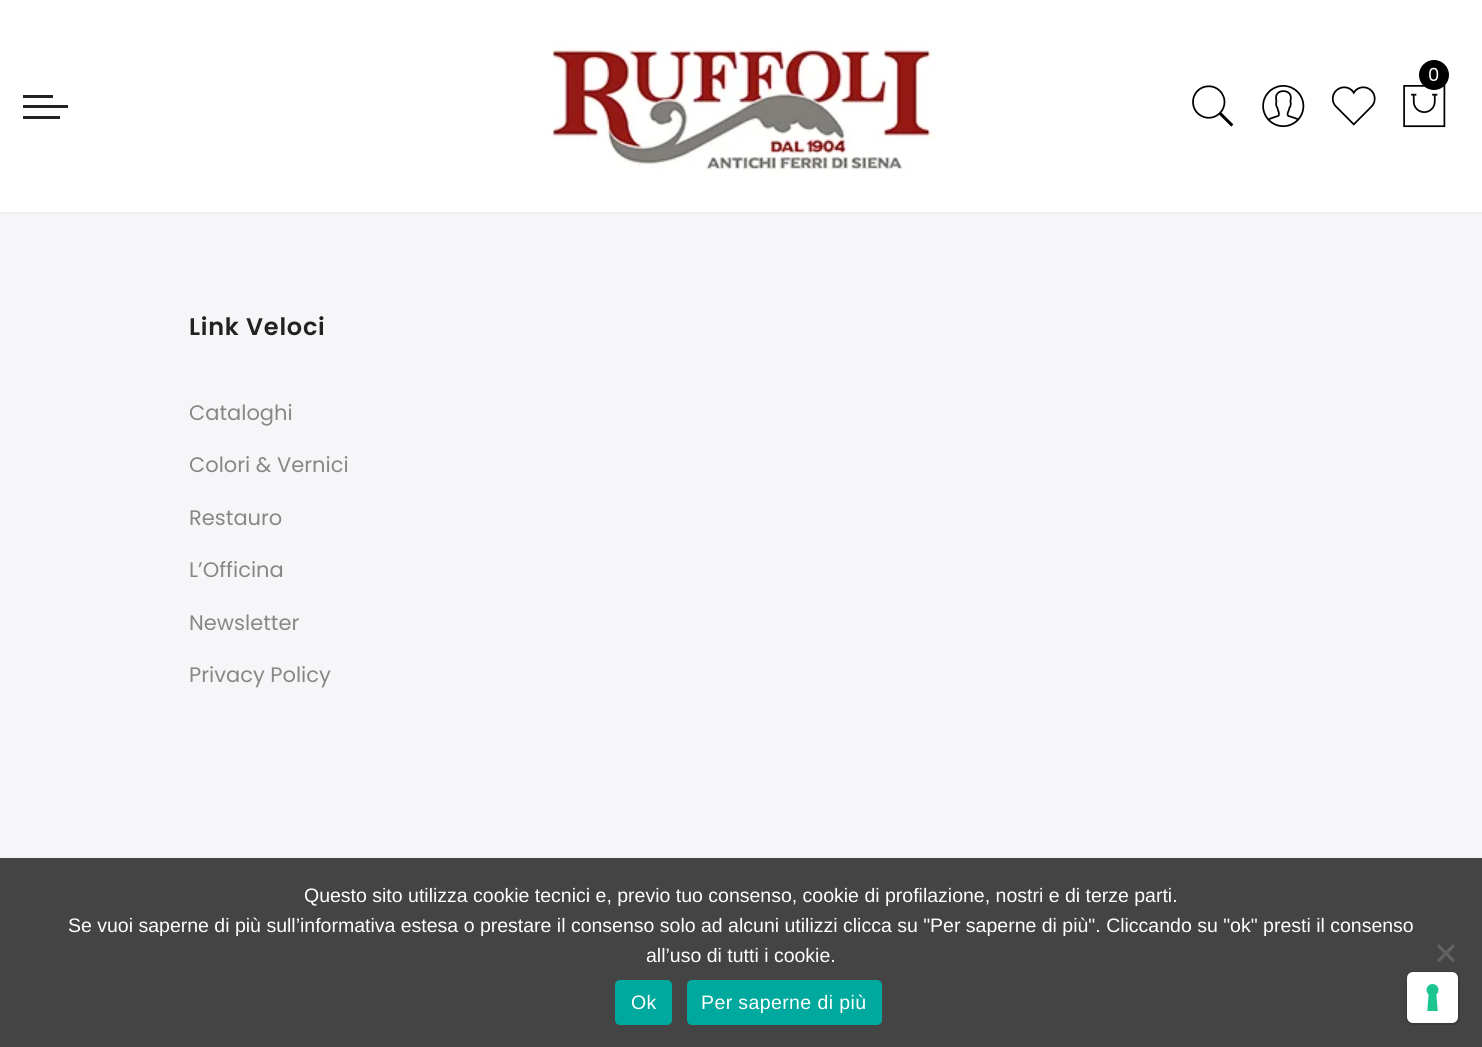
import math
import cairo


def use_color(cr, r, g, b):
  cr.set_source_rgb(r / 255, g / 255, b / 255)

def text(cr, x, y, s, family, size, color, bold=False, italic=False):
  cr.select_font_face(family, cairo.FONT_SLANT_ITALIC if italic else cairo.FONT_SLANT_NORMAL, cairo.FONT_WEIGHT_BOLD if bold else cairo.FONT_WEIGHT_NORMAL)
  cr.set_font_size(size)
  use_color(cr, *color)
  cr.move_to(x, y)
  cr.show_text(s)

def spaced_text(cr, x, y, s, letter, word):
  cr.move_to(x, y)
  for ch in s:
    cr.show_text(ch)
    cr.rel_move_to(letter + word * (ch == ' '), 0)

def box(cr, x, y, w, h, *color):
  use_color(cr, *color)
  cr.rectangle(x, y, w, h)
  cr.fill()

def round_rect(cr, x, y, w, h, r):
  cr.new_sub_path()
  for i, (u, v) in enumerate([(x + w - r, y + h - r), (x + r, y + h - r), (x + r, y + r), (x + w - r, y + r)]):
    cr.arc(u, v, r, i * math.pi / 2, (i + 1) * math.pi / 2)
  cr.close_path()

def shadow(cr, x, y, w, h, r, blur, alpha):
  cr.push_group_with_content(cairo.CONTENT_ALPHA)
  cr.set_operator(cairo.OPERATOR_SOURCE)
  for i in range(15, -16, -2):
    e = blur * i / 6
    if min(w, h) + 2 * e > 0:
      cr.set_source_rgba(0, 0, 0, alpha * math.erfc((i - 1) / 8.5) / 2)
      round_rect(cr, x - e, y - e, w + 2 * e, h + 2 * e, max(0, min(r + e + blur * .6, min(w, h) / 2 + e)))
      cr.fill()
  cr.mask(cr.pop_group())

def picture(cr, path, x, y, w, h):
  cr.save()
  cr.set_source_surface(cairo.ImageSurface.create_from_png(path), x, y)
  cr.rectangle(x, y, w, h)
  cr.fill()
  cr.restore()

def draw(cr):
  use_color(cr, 246, 246, 248)
  cr.paint()
  use_color(cr, 0, 0, 0)
  shadow(cr, 0, 0, 1482, 212, 0, 2, 0.12)
  box(cr, 0, 0, 1482, 212, 255, 255, 255)
  picture(cr, "img_01.png", 551, 44, 385, 130)
  picture(cr, "img_02.png", 1403, 85, 43, 43)
  use_color(cr, 0, 0, 0)
  cr.arc(1434, 75, 15, 0, 2 * math.pi)
  cr.fill()
  picture(cr, "img_03.png", 1192, 85, 42, 42)
  picture(cr, "img_04.png", 1262, 85, 43, 43)
  picture(cr, "img_05.png", 1331, 86, 45, 40)
  box(cr, 23, 95, 30, 3, 34, 34, 34)
  box(cr, 23, 105, 45, 3, 34, 34, 34)
  box(cr, 23, 116, 37, 3, 34, 34, 34)
  box(cr, 0, 858, 1482, 189, 68, 68, 68)
  use_color(cr, 98, 98, 98)
  cr.new_path()
  cr.move_to(1453, 944)
  cr.line_to(1455, 946.5)
  cr.line_to(1439, 962.5)
  cr.line_to(1437, 960)
  cr.close_path()
  cr.fill()
  cr.new_path()
  cr.move_to(1437, 946.5)
  cr.line_to(1439, 944)
  cr.line_to(1455, 960)
  cr.line_to(1453, 962.5)
  cr.close_path()
  cr.fill()
  use_color(cr, 0, 169, 157)
  round_rect(cr, 615, 980, 57, 45, 5)
  cr.fill()
  round_rect(cr, 687, 980, 195, 45, 5)
  cr.fill()
  round_rect(cr, 1407, 972, 52, 52, 7)
  use_color(cr, 58, 58, 58)
  cr.stroke()
  use_color(cr, 255, 255, 255)
  round_rect(cr, 1407, 972, 51, 51, 6)
  cr.fill()
  picture(cr, "img_06.png", 1426, 984, 13, 27)
  text(cr, 1428, 81, "0", "Poppins", 18, (255, 255, 255))
  cr.select_font_face("Poppins SemiBold")
  cr.set_font_size(24)
  use_color(cr, 34, 34, 34)
  spaced_text(cr, 189, 335, "Link Veloci", 0.75, 0)
  text(cr, 189, 420, "Cataloghi", "Poppins", 21, (135, 135, 135))
  text(cr, 189, 472, "Colori & Vernici", "Poppins", 21, (135, 135, 135))
  text(cr, 189, 525, "Restauro", "Poppins", 21, (135, 135, 135))
  text(cr, 189, 577, "L’Officina", "Poppins", 21, (135, 135, 135))
  text(cr, 189, 630, "Newsletter", "Poppins", 21, (135, 135, 135))
  text(cr, 189, 682, "Privacy Policy", "Poppins", 21, (135, 135, 135))
  text(cr, 304, 902, "Questo sito utilizza cookie tecnici e, previo tuo consenso, cookie di profilazione, nostri e di terze parti.", "Liberation Sans", 19.5, (255, 255, 255))
  text(cr, 68, 932, "Se vuoi saperne di più sull’informativa estesa o prestare il consenso solo ad alcuni utilizzi clicca su \"Per saperne di più\". Cliccando su \"ok\" presti il consenso", "Liberation Sans", 19.5, (255, 255, 255))
  text(cr, 646, 962, "all’uso di tutti i cookie.", "Liberation Sans", 19.5, (255, 255, 255))
  spaced_text(cr, 631, 1009, "Ok", 0.4, 0)
  spaced_text(cr, 701, 1009, "Per saperne di più", 0.4, 0)


surface = cairo.ImageSurface(cairo.FORMAT_RGB24, 1482, 1047)
cr = cairo.Context(surface)
options = cairo.FontOptions()
options.set_hint_metrics(cairo.HINT_METRICS_OFF)
options.set_hint_style(cairo.HINT_STYLE_NONE)
cr.set_font_options(options)
cr.set_miter_limit(4)
draw(cr)
surface.write_to_png("out.png")
